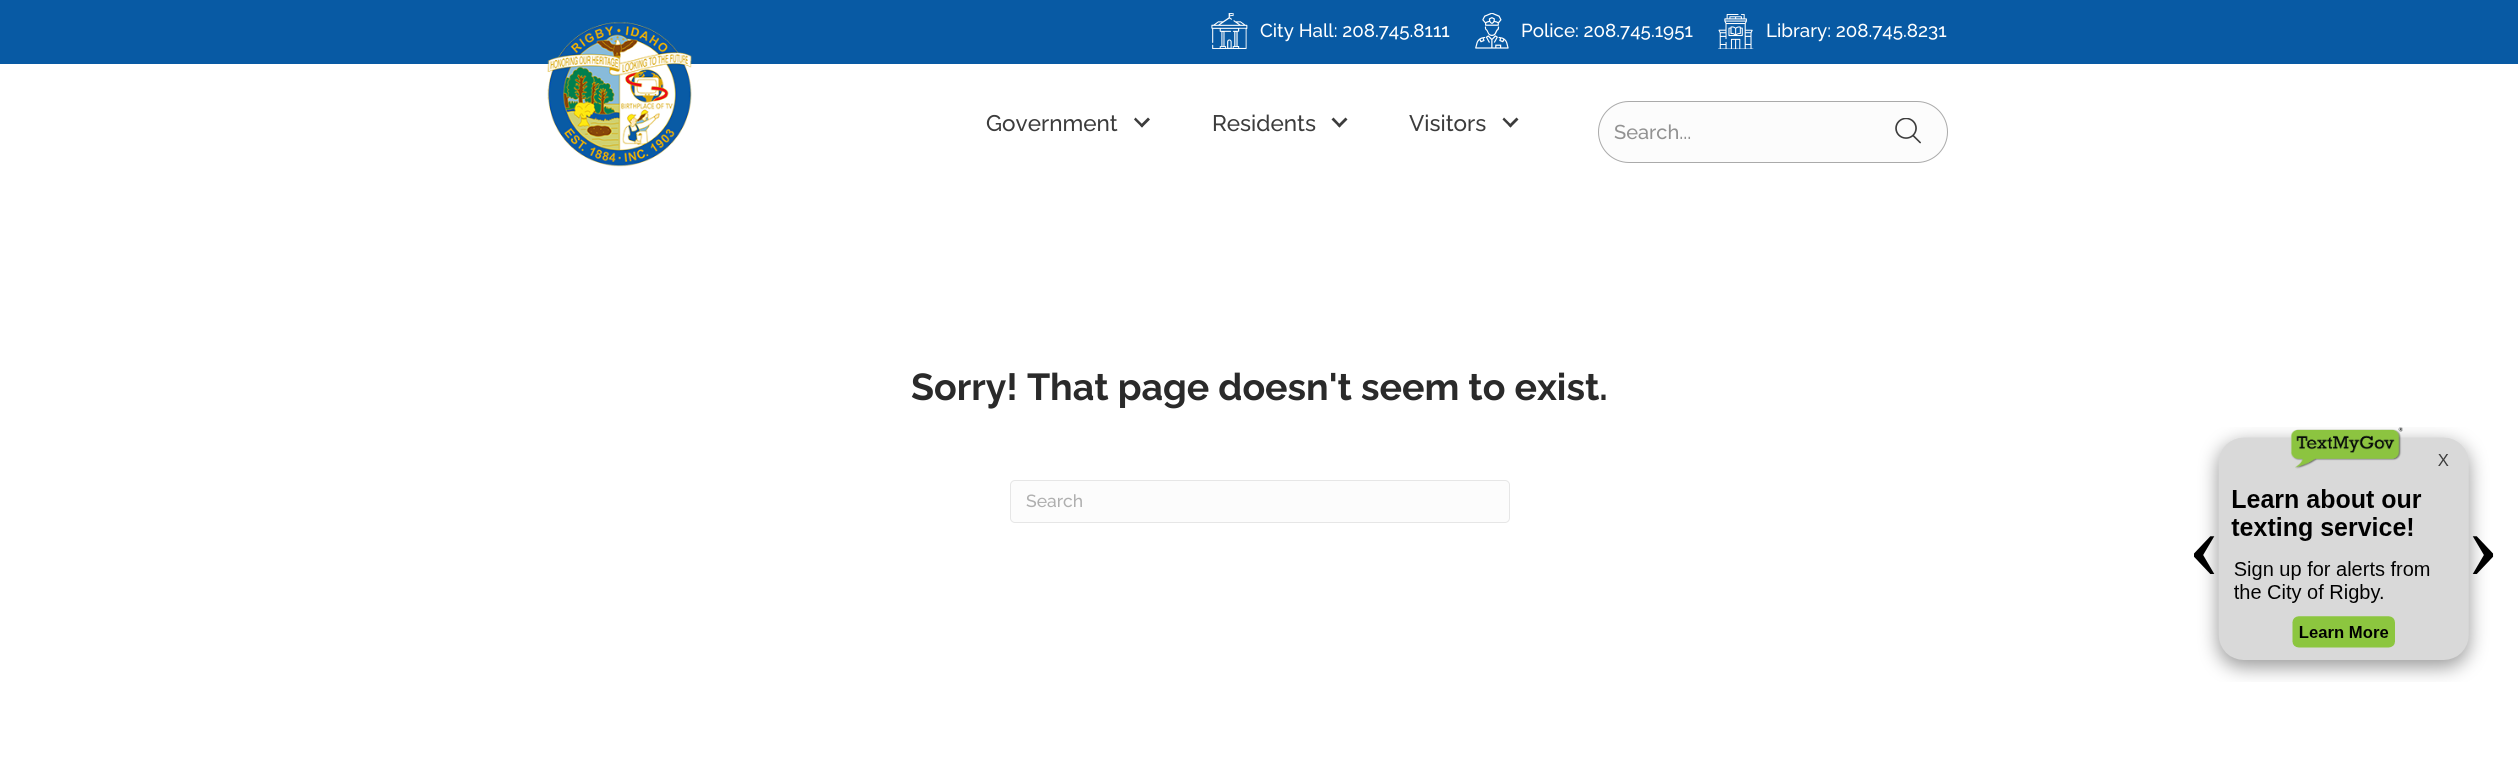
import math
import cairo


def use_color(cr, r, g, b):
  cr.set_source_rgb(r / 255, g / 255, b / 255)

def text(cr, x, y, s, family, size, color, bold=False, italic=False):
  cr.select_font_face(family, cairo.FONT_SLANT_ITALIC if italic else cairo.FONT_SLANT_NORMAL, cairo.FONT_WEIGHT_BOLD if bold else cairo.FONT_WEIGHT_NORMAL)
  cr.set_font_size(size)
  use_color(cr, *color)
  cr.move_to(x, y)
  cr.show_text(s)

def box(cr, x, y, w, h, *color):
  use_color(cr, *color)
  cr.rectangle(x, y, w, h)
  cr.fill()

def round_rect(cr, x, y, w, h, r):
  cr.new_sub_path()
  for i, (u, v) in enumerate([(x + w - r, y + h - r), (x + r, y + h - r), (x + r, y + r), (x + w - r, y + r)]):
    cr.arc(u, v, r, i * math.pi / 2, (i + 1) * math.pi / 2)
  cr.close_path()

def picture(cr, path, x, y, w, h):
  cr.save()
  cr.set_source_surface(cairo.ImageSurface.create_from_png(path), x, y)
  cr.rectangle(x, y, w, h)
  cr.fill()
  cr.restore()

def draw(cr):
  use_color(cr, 255, 255, 255)
  cr.paint()
  box(cr, 0, 0, 2518, 64, 8, 90, 164)
  picture(cr, "img_01.png", 1211, 13, 37, 36)
  picture(cr, "img_02.png", 1475, 13, 34, 36)
  picture(cr, "img_03.png", 1718, 14, 36, 35)
  picture(cr, "img_04.png", 547, 22, 145, 145)
  use_color(cr, 60, 60, 60)
  cr.new_path()
  cr.move_to(1148, 117.5)
  cr.line_to(1150, 119.5)
  cr.line_to(1142, 127.5)
  cr.line_to(1140, 125.5)
  cr.close_path()
  cr.fill()
  cr.new_path()
  cr.move_to(1135.5, 117.5)
  cr.line_to(1143.5, 125.5)
  cr.line_to(1142, 127.5)
  cr.line_to(1134, 119.5)
  cr.close_path()
  cr.fill()
  cr.new_path()
  cr.move_to(1345.5, 117.5)
  cr.line_to(1347.5, 119.5)
  cr.line_to(1339.5, 127.5)
  cr.line_to(1337.5, 125.5)
  cr.close_path()
  cr.fill()
  cr.new_path()
  cr.move_to(1333.5, 117.5)
  cr.line_to(1341, 125.5)
  cr.line_to(1339.5, 127.5)
  cr.line_to(1331.5, 119.5)
  cr.close_path()
  cr.fill()
  cr.new_path()
  cr.move_to(1516.5, 117.5)
  cr.line_to(1518.5, 119.5)
  cr.line_to(1510.5, 127.5)
  cr.line_to(1508.5, 125.5)
  cr.close_path()
  cr.fill()
  cr.new_path()
  cr.move_to(1504, 117.5)
  cr.line_to(1512, 125.5)
  cr.line_to(1510.5, 127.5)
  cr.line_to(1502.5, 119.5)
  cr.close_path()
  cr.fill()
  use_color(cr, 252, 252, 252)
  round_rect(cr, 1598.5, 101.5, 349, 61, 30.5)
  cr.fill_preserve()
  use_color(cr, 170, 170, 170)
  cr.set_line_width(1)
  cr.stroke()
  picture(cr, "img_05.png", 1895, 118, 26, 26)
  use_color(cr, 252, 252, 252)
  round_rect(cr, 1010.5, 480.5, 499, 42, 4.5)
  cr.fill_preserve()
  use_color(cr, 230, 230, 230)
  cr.stroke()
  picture(cr, "img_06.png", 2194, 427, 300, 255)
  text(cr, 1260, 37, "City Hall: 208.745.8111", "Raleway Medium", 18.75, (255, 255, 255))
  text(cr, 1521, 37, "Police: 208.745.1951", "Raleway Medium", 18.75, (255, 255, 255))
  text(cr, 1766, 37, "Library: 208.745.8231", "Raleway Medium", 18.75, (255, 255, 255))
  text(cr, 986, 131, "Government", "Raleway Medium", 22.5, (60, 60, 60))
  text(cr, 1212, 131, "Residents", "Raleway Medium", 22.5, (60, 60, 60))
  text(cr, 1409, 131, "Visitors", "Raleway Medium", 22.5, (60, 60, 60))
  text(cr, 1614, 139, "Search...", "Raleway Medium", 20, (146, 146, 146))
  text(cr, 911, 400, "Sorry! That page doesn't seem to exist.", "Raleway", 37.5, (42, 42, 42), bold=True)
  text(cr, 1026, 507, "Search", "Raleway Medium", 17.5, (175, 175, 175))


surface = cairo.ImageSurface(cairo.FORMAT_RGB24, 2518, 760)
cr = cairo.Context(surface)
options = cairo.FontOptions()
options.set_hint_metrics(cairo.HINT_METRICS_OFF)
options.set_hint_style(cairo.HINT_STYLE_NONE)
cr.set_font_options(options)
cr.set_miter_limit(4)
draw(cr)
surface.write_to_png("out.png")
